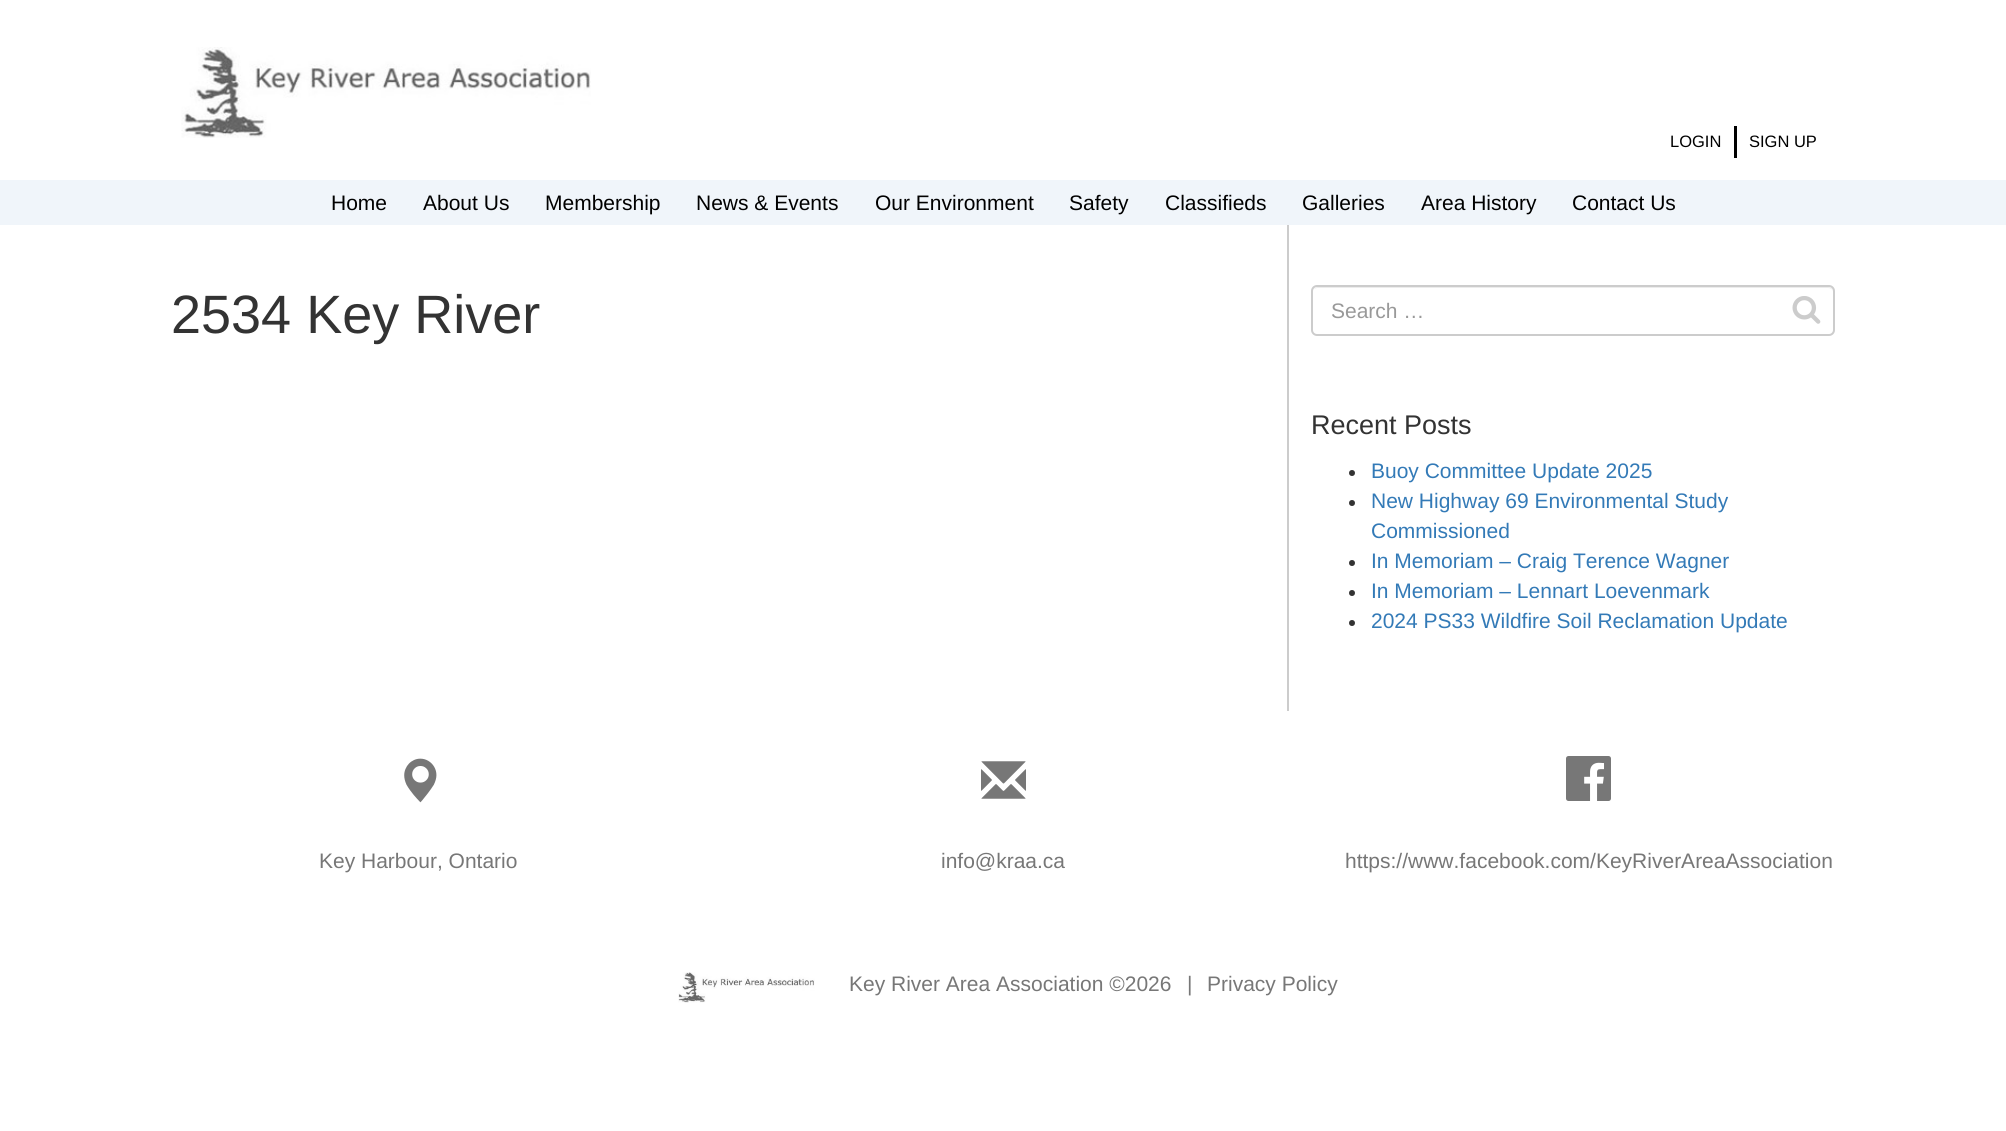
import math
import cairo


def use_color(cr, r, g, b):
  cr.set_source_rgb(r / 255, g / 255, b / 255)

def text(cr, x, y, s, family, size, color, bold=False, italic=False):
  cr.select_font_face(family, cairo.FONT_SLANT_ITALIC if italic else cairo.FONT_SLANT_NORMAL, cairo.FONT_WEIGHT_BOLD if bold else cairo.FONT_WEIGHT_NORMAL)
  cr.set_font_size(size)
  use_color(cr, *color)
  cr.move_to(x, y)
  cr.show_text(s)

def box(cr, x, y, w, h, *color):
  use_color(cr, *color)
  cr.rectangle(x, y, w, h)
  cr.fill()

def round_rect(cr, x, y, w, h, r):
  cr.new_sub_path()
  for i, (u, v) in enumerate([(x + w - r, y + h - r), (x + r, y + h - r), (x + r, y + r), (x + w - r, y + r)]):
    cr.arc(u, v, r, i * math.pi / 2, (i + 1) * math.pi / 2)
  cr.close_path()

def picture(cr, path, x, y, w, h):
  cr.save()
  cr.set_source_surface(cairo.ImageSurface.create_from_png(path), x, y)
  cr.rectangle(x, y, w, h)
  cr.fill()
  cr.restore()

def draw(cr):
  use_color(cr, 255, 255, 255)
  cr.paint()
  picture(cr, "img_01.png", 181, 47, 410, 91)
  box(cr, 1734, 126, 3, 32, 0, 0, 0)
  box(cr, 0, 180, 2006, 45, 240, 245, 250)
  box(cr, 1287, 225, 2, 486, 204, 204, 204)
  use_color(cr, 236, 236, 236)
  cr.new_path()
  cr.move_to(1317, 288)
  cr.line_to(1828, 288)
  cr.curve_to(1831, 288, 1833, 290, 1833, 292)
  cr.curve_to(1833, 289, 1831, 287, 1828, 287)
  cr.line_to(1318, 287)
  cr.curve_to(1316, 287, 1315, 288, 1314, 289)
  cr.close_path()
  cr.fill()
  round_rect(cr, 1312, 286, 522, 49, 5)
  use_color(cr, 204, 204, 204)
  cr.stroke()
  picture(cr, "img_02.png", 1792, 296, 29, 28)
  use_color(cr, 51, 51, 51)
  cr.arc(1352, 473, 3, 0, 2 * math.pi)
  cr.fill()
  cr.arc(1352, 503, 3, 0, 2 * math.pi)
  cr.fill()
  cr.arc(1352, 563, 3, 0, 2 * math.pi)
  cr.fill()
  cr.arc(1352, 593, 3, 0, 2 * math.pi)
  cr.fill()
  cr.arc(1352, 623, 3, 0, 2 * math.pi)
  cr.fill()
  picture(cr, "img_03.png", 404, 758, 33, 45)
  picture(cr, "img_04.png", 981, 761, 45, 38)
  picture(cr, "img_05.png", 1566, 756, 45, 45)
  picture(cr, "img_06.png", 678, 972, 137, 31)
  text(cr, 1670, 147, "LOGIN", "Liberation Sans", 16.5, (0, 0, 0))
  text(cr, 1749, 147, "SIGN UP", "Liberation Sans", 16.5, (0, 0, 0))
  text(cr, 331, 210, "Home", "Liberation Sans", 21, (0, 0, 0))
  text(cr, 423, 210, "About Us", "Liberation Sans", 21, (0, 0, 0))
  text(cr, 545, 210, "Membership", "Liberation Sans", 21, (0, 0, 0))
  text(cr, 696, 210, "News & Events", "Liberation Sans", 21, (0, 0, 0))
  text(cr, 875, 210, "Our Environment", "Liberation Sans", 21, (0, 0, 0))
  text(cr, 1069, 210, "Safety", "Liberation Sans", 21, (0, 0, 0))
  text(cr, 1165, 210, "Classifieds", "Liberation Sans", 21, (0, 0, 0))
  text(cr, 1302, 210, "Galleries", "Liberation Sans", 21, (0, 0, 0))
  text(cr, 1421, 210, "Area History", "Liberation Sans", 21, (0, 0, 0))
  text(cr, 1572, 210, "Contact Us", "Liberation Sans", 21, (0, 0, 0))
  text(cr, 171, 333, "2534 Key River", "Liberation Sans", 54, (51, 51, 51))
  text(cr, 1331, 318, "Search …", "Liberation Sans", 21, (153, 153, 153))
  text(cr, 1311, 434, "Recent Posts", "Liberation Sans", 27, (51, 51, 51))
  text(cr, 1371, 478, "Buoy Committee Update 2025", "Liberation Sans", 21, (51, 122, 183))
  text(cr, 1371, 508, "New Highway 69 Environmental Study", "Liberation Sans", 21, (51, 122, 183))
  text(cr, 1371, 538, "Commissioned", "Liberation Sans", 21, (51, 122, 183))
  text(cr, 1371, 568, "In Memoriam – Craig Terence Wagner", "Liberation Sans", 21, (51, 122, 183))
  text(cr, 1371, 598, "In Memoriam – Lennart Loevenmark", "Liberation Sans", 21, (51, 122, 183))
  text(cr, 1371, 628, "2024 PS33 Wildfire Soil Reclamation Update", "Liberation Sans", 21, (51, 122, 183))
  text(cr, 319, 868, "Key Harbour, Ontario", "Liberation Sans", 21, (119, 119, 119))
  text(cr, 941, 868, "info@kraa.ca", "Liberation Sans", 21, (119, 119, 119))
  text(cr, 1345, 868, "https://www.facebook.com/KeyRiverAreaAssociation", "Liberation Sans", 21, (119, 119, 119))
  text(cr, 849, 991, "Key River Area Association ©2026", "Liberation Sans", 21, (119, 119, 119))
  text(cr, 1187, 991, "|", "Liberation Sans", 21, (119, 119, 119))
  text(cr, 1207, 991, "Privacy Policy", "Liberation Sans", 21, (119, 119, 119))


surface = cairo.ImageSurface(cairo.FORMAT_RGB24, 2006, 1131)
cr = cairo.Context(surface)
options = cairo.FontOptions()
options.set_hint_metrics(cairo.HINT_METRICS_OFF)
options.set_hint_style(cairo.HINT_STYLE_NONE)
cr.set_font_options(options)
cr.set_miter_limit(4)
draw(cr)
surface.write_to_png("out.png")
